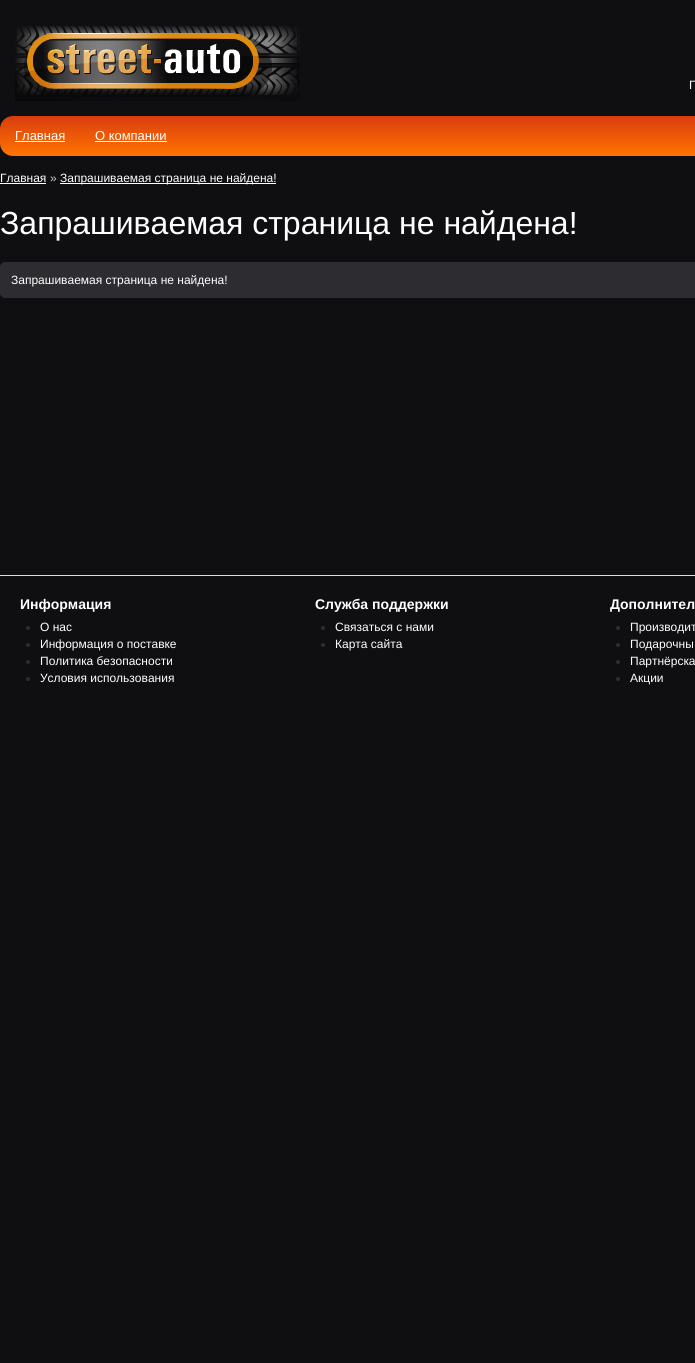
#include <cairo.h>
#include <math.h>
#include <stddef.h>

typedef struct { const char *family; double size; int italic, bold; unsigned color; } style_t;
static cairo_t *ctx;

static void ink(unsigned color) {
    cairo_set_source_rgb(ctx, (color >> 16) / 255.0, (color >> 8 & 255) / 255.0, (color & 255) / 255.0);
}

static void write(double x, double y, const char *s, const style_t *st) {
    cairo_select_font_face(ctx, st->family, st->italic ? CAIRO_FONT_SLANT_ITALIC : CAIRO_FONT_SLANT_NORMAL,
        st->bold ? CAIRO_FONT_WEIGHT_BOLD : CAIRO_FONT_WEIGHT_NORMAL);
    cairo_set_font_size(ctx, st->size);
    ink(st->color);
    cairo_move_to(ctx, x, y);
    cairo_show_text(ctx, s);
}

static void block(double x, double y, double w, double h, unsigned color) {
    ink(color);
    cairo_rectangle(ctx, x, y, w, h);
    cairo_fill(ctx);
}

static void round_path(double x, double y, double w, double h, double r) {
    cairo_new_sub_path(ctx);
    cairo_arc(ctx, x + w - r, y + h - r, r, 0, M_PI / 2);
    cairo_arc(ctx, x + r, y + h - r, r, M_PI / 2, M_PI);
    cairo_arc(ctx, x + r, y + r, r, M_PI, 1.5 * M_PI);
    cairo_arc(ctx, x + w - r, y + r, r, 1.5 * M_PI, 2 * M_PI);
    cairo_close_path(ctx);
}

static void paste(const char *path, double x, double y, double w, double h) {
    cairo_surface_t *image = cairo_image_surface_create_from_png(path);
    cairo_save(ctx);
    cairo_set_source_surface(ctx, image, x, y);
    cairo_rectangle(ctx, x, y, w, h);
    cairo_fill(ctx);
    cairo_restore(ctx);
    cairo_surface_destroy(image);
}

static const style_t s1 = {"Liberation Sans", 12, 0, 0, 0xffffff};
static const style_t s2 = {"Liberation Sans", 13, 0, 0, 0xffffff};
static const style_t s3 = {"Liberation Sans", 12, 0, 0, 0xcccccc};
static const style_t s4 = {"Liberation Sans", 32, 0, 0, 0xffffff};
static const style_t s5 = {"Liberation Sans", 14, 0, 1, 0xffffff};

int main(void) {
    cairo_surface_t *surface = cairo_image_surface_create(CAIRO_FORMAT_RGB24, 695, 1363);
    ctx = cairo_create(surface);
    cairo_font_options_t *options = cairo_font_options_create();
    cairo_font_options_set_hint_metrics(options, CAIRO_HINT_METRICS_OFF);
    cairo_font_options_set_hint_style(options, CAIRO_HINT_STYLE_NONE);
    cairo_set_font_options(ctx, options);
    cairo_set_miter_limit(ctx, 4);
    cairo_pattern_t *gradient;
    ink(0x0f0f11);
    cairo_paint(ctx);
    paste("pic1.png", 15, 26, 285, 75);
    write(689, 89, "Г", &s1);
    gradient = cairo_pattern_create_linear(513, 116, 513, 156);
    cairo_pattern_add_color_stop_rgba(gradient, 0, 0.851, 0.239, 0.055, 1);
    cairo_pattern_add_color_stop_rgba(gradient, 1, 1, 0.455, 0, 1);
    cairo_set_source(ctx, gradient);
    cairo_pattern_destroy(gradient);
    round_path(0, 116, 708, 40, 13);
    cairo_fill(ctx);
    write(15, 140, "Главная", &s2);
    block(15, 141, 50, 1, 0xffffff);
    write(95, 140, "О компании", &s2);
    block(95, 141, 72, 1, 0xffffff);
    write(0, 182, "Главная", &s1);
    block(0, 183, 46, 1, 0xffffff);
    write(50, 182, "»", &s3);
    block(60, 183, 216, 1, 0xffffff);
    write(60, 182, "Запрашиваемая страница не найдена!", &s1);
    write(0, 234, "Запрашиваемая страница не найдена!", &s4);
    ink(0x2d2d31);
    round_path(0.5, 262.5, 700, 35, 4.5);
    cairo_fill_preserve(ctx);
    cairo_set_line_width(ctx, 1);
    cairo_stroke(ctx);
    write(11, 284, "Запрашиваемая страница не найдена!", &s1);
    block(0, 575, 695, 1, 0xdbdee1);
    write(20, 609, "Информация", &s5);
    ink(0x2d2d31);
    cairo_new_path(ctx);
    cairo_arc(ctx, 28, 628, 2, 0, 2 * M_PI);
    cairo_fill(ctx);
    write(40, 631, "О нас", &s1);
    ink(0x2d2d31);
    cairo_new_path(ctx);
    cairo_arc(ctx, 28, 645, 2, 0, 2 * M_PI);
    cairo_fill(ctx);
    write(40, 648, "Информация о поставке", &s1);
    ink(0x2d2d31);
    cairo_new_path(ctx);
    cairo_arc(ctx, 28, 662, 2, 0, 2 * M_PI);
    cairo_fill(ctx);
    write(40, 665, "Политика безопасности", &s1);
    ink(0x2d2d31);
    cairo_new_path(ctx);
    cairo_arc(ctx, 28, 679, 2, 0, 2 * M_PI);
    cairo_fill(ctx);
    write(40, 682, "Условия использования", &s1);
    write(315, 609, "Служба поддержки", &s5);
    ink(0x2d2d31);
    cairo_new_path(ctx);
    cairo_arc(ctx, 323, 628, 2, 0, 2 * M_PI);
    cairo_fill(ctx);
    write(335, 631, "Связаться с нами", &s1);
    ink(0x2d2d31);
    cairo_new_path(ctx);
    cairo_arc(ctx, 323, 645, 2, 0, 2 * M_PI);
    cairo_fill(ctx);
    write(335, 648, "Карта сайта", &s1);
    write(610, 609, "Дополнител", &s5);
    ink(0x2d2d31);
    cairo_new_path(ctx);
    cairo_arc(ctx, 618, 628, 2, 0, 2 * M_PI);
    cairo_fill(ctx);
    write(630, 631, "Производит", &s1);
    ink(0x2d2d31);
    cairo_new_path(ctx);
    cairo_arc(ctx, 618, 645, 2, 0, 2 * M_PI);
    cairo_fill(ctx);
    write(630, 648, "Подарочны", &s1);
    ink(0x2d2d31);
    cairo_new_path(ctx);
    cairo_arc(ctx, 618, 662, 2, 0, 2 * M_PI);
    cairo_fill(ctx);
    write(630, 665, "Партнёрска", &s1);
    ink(0x2d2d31);
    cairo_new_path(ctx);
    cairo_arc(ctx, 618, 679, 2, 0, 2 * M_PI);
    cairo_fill(ctx);
    write(630, 682, "Акции", &s1);
    cairo_surface_write_to_png(surface, "screenshot.png");
    cairo_font_options_destroy(options);
    cairo_destroy(ctx);
    cairo_surface_destroy(surface);
    return 0;
}
